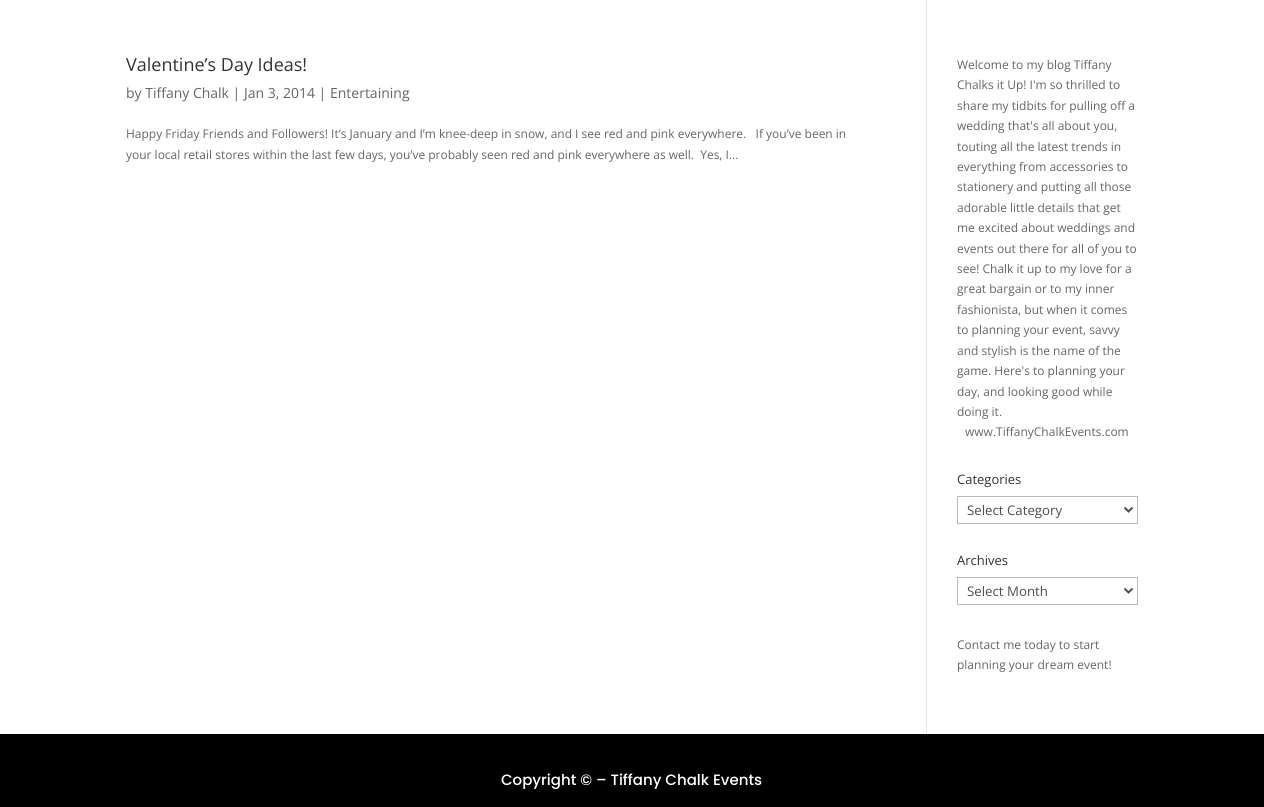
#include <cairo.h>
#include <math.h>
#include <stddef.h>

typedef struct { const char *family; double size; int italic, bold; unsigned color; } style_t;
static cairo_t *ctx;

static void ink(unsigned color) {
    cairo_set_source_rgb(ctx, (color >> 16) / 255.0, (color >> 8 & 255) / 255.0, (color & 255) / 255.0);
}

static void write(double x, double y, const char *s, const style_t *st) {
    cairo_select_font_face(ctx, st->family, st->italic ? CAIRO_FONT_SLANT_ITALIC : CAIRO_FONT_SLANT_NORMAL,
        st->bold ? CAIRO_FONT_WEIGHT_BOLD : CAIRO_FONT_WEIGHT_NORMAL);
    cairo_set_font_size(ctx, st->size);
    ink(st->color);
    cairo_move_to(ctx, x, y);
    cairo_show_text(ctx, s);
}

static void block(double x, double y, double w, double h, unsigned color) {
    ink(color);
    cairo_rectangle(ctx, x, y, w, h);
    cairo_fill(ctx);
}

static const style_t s1 = {"Open Sans", 18, 0, 0, 0x333333};
static const style_t s2 = {"Open Sans", 14, 0, 0, 0x666666};
static const style_t s3 = {"Open Sans", 12, 0, 0, 0x666666};
static const style_t s4 = {"Open Sans", 13, 0, 0, 0x333333};
static const style_t s5 = {"Open Sans", 13.25, 0, 0, 0x4e4e4e};
static const style_t s6 = {"Poppins Medium", 15, 0, 0, 0xffffff};

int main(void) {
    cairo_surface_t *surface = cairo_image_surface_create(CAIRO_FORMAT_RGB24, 1264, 807);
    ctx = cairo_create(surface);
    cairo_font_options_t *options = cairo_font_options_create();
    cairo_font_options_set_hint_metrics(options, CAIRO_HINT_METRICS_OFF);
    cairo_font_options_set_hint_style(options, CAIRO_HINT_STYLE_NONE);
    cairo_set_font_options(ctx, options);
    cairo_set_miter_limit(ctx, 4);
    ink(0xffffff);
    cairo_paint(ctx);
    block(926, 0, 1, 734, 0xe2e2e2);
    write(126, 71, "Valentine’s Day Ideas!", &s1);
    write(126, 98, "by Tiffany Chalk | Jan 3, 2014 | Entertaining", &s2);
    write(126, 138, "Happy Friday Friends and Followers! It’s January and I’m knee-deep in snow, and I see red and pink everywhere.   If you’ve been in", &s3);
    write(126, 159, "your local retail stores within the last few days, you’ve probably seen red and pink everywhere as well.  Yes, I...", &s3);
    write(957, 69, "Welcome to my blog Tiffany", &s3);
    write(957, 89, "Chalks it Up! I'm so thrilled to", &s3);
    write(957, 110, "share my tidbits for pulling off a", &s3);
    write(957, 130, "wedding that's all about you,", &s3);
    write(957, 151, "touting all the latest trends in", &s3);
    write(957, 171, "everything from accessories to", &s3);
    write(957, 191, "stationery and putting all those", &s3);
    write(957, 212, "adorable little details that get", &s3);
    write(957, 232, "me excited about weddings and", &s3);
    write(957, 253, "events out there for all of you to", &s3);
    write(957, 273, "see! Chalk it up to my love for a", &s3);
    write(957, 293, "great bargain or to my inner", &s3);
    write(957, 314, "fashionista, but when it comes", &s3);
    write(957, 334, "to planning your event, savvy", &s3);
    write(957, 355, "and stylish is the name of the", &s3);
    write(957, 375, "game. Here's to planning your", &s3);
    write(957, 396, "day, and looking good while", &s3);
    write(957, 416, "doing it.", &s3);
    write(965, 436, "www.TiffanyChalkEvents.com", &s3);
    write(957, 484, "Categories", &s4);
    cairo_rectangle(ctx, 957.5, 496.5, 180, 27);
    ink(0xbbbbbb);
    cairo_set_line_width(ctx, 1);
    cairo_stroke(ctx);
    cairo_new_path(ctx);
    cairo_move_to(ctx, 1124.5, 507.5);
    cairo_line_to(ctx, 1128.5, 511.5);
    cairo_line_to(ctx, 1132.5, 507.5);
    ink(0x4e4e4e);
    cairo_set_line_width(ctx, 2);
    cairo_stroke(ctx);
    write(967, 515, "Select Category", &s5);
    write(957, 565, "Archives", &s4);
    cairo_rectangle(ctx, 957.5, 577.5, 180, 27);
    ink(0xbbbbbb);
    cairo_set_line_width(ctx, 1);
    cairo_stroke(ctx);
    cairo_new_path(ctx);
    cairo_move_to(ctx, 1124.5, 588.5);
    cairo_line_to(ctx, 1128.5, 592.5);
    cairo_line_to(ctx, 1132.5, 588.5);
    ink(0x4e4e4e);
    cairo_set_line_width(ctx, 2);
    cairo_stroke(ctx);
    write(967, 596, "Select Month", &s5);
    write(957, 649, "Contact me today to start", &s3);
    write(957, 669, "planning your dream event!", &s3);
    block(0, 734, 1264, 73, 0x000000);
    write(501, 785, "Copyright © – Tiffany Chalk Events", &s6);
    cairo_surface_write_to_png(surface, "screenshot.png");
    cairo_font_options_destroy(options);
    cairo_destroy(ctx);
    cairo_surface_destroy(surface);
    return 0;
}
